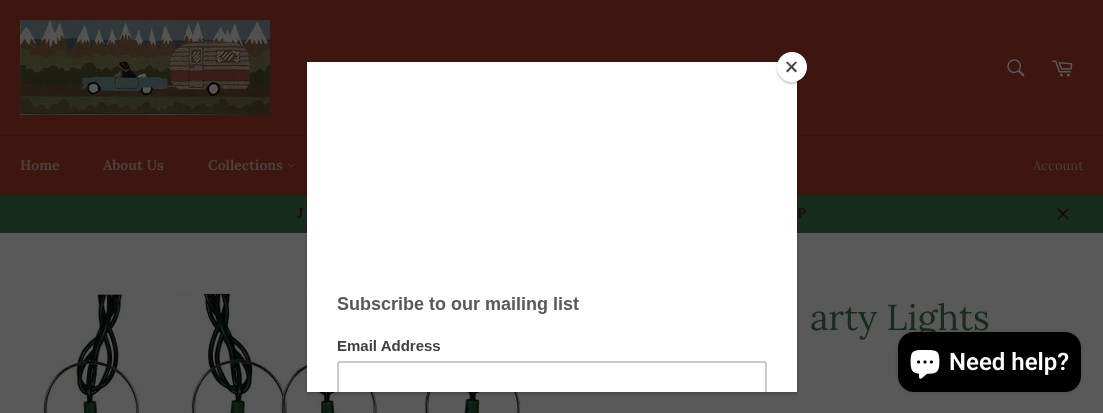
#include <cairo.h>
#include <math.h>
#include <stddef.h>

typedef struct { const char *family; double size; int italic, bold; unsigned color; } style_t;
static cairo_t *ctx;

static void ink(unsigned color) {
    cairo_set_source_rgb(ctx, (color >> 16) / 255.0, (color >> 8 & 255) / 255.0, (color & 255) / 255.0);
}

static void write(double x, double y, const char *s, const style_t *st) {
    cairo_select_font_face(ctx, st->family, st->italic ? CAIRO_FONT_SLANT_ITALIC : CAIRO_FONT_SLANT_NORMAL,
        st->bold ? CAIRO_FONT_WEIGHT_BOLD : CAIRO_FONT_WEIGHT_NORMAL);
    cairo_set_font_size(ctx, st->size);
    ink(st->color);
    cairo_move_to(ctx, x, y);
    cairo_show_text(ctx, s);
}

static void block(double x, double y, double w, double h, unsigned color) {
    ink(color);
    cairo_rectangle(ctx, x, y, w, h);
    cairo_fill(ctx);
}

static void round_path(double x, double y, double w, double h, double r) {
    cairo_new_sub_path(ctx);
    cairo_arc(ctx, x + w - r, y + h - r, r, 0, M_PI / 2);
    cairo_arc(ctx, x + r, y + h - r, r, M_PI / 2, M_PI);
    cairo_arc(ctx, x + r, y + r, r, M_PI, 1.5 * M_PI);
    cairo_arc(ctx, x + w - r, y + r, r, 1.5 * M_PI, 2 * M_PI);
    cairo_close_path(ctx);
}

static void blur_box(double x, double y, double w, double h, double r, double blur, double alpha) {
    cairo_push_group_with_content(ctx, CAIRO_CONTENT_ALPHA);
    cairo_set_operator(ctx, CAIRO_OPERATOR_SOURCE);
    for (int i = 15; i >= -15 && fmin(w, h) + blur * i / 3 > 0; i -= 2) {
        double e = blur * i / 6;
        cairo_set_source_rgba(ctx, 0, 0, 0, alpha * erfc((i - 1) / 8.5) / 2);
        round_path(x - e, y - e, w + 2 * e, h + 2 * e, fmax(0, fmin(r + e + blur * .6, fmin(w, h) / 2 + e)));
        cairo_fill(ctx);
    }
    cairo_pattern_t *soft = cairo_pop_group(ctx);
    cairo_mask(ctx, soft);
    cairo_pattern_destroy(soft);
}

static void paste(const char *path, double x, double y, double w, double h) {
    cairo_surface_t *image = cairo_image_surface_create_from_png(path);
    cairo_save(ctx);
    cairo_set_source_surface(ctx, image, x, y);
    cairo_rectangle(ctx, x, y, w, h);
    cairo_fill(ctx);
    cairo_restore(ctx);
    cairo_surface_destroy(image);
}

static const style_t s1 = {"Lora", 14, 0, 1, 0x4e3e3c};
static const style_t s2 = {"Lora", 13, 0, 0, 0x4e3e3c};
static const style_t s3 = {"Lora", 14, 0, 1, 0x190a07};
static const style_t s4 = {"Lora", 36, 0, 0, 0x182c1d};
static const style_t s5 = {"Roboto SemiBold", 24, 0, 0, 0xffffff};

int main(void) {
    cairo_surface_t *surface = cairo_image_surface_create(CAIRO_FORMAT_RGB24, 1103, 413);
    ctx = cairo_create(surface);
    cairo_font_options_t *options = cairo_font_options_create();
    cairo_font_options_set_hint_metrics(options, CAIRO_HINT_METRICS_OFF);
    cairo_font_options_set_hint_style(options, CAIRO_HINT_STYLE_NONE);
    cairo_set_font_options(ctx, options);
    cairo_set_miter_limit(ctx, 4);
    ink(0x595959);
    cairo_paint(ctx);
    block(0, 0, 1103, 135, 0x3c160f);
    block(0, 136, 1103, 59, 0x3c160f);
    block(0, 135, 1103, 1, 0x35140e);
    block(0, 195, 1103, 38, 0x182c1d);
    paste("pic7.png", 41, 293, 480, 120);
    ink(0x000000);
    blur_box(307, 64, 490, 330, 0, 2, 0.2);
    paste("pic1.png", 307, 62, 490, 330);
    blur_box(777, 54, 30, 30, 15, 1, 0.2);
    ink(0xffffff);
    cairo_arc(ctx, 792, 67, 15, 0, 2 * M_PI);
    cairo_fill(ctx);
    ink(0x414141);
    cairo_new_path(ctx);
    cairo_move_to(ctx, 795.5, 61.5);
    cairo_line_to(ctx, 797, 62.5);
    cairo_line_to(ctx, 787.5, 72.5);
    cairo_line_to(ctx, 786, 71);
    cairo_close_path(ctx);
    cairo_fill(ctx);
    cairo_new_path(ctx);
    cairo_move_to(ctx, 786, 62.5);
    cairo_line_to(ctx, 787.5, 61.5);
    cairo_line_to(ctx, 797, 71);
    cairo_line_to(ctx, 795.5, 72.5);
    cairo_close_path(ctx);
    cairo_fill(ctx);
    paste("pic2.png", 20, 20, 250, 95);
    paste("pic3.png", 1007, 59, 18, 18);
    paste("pic4.png", 1051, 60, 22, 17);
    write(20, 170, "Home", &s1);
    write(103, 170, "About Us", &s1);
    write(208, 170, "Collections", &s1);
    paste("pic5.png", 288, 163, 7, 5);
    write(1033, 170, "Account", &s2);
    write(297, 218, "J", &s3);
    write(797, 218, "P", &s3);
    paste("pic6.png", 1057, 208, 12, 12);
    write(810, 330, "arty Lights", &s4);
    ink(0x000000);
    blur_box(898, 332, 183, 60, 16, 2.5, 0.15);
    ink(0x000000);
    round_path(898, 332, 183, 60, 16);
    cairo_fill(ctx);
    paste("pic8.png", 910, 350, 30, 29);
    write(949, 370, "Need help?", &s5);
    cairo_surface_write_to_png(surface, "screenshot.png");
    cairo_font_options_destroy(options);
    cairo_destroy(ctx);
    cairo_surface_destroy(surface);
    return 0;
}
